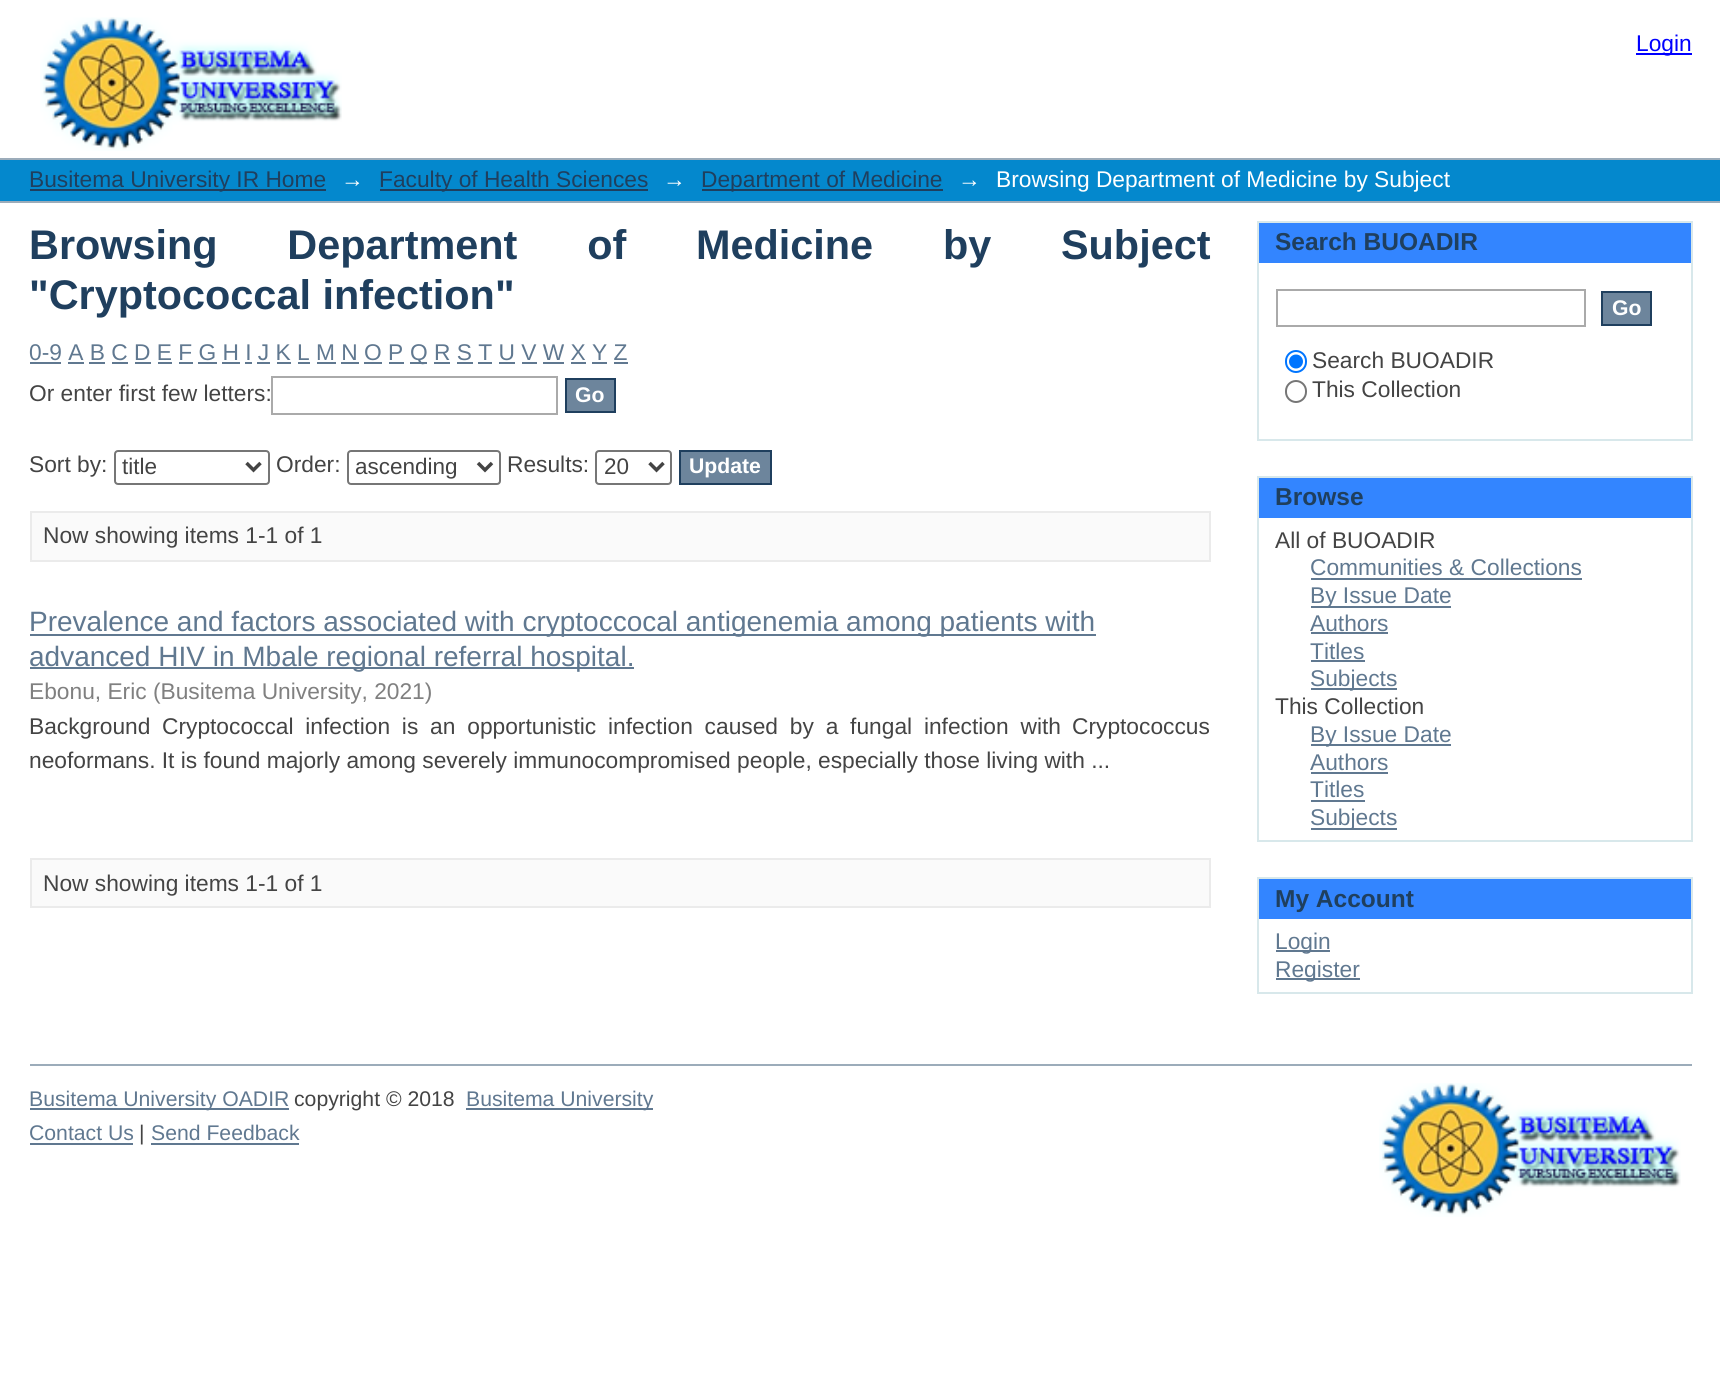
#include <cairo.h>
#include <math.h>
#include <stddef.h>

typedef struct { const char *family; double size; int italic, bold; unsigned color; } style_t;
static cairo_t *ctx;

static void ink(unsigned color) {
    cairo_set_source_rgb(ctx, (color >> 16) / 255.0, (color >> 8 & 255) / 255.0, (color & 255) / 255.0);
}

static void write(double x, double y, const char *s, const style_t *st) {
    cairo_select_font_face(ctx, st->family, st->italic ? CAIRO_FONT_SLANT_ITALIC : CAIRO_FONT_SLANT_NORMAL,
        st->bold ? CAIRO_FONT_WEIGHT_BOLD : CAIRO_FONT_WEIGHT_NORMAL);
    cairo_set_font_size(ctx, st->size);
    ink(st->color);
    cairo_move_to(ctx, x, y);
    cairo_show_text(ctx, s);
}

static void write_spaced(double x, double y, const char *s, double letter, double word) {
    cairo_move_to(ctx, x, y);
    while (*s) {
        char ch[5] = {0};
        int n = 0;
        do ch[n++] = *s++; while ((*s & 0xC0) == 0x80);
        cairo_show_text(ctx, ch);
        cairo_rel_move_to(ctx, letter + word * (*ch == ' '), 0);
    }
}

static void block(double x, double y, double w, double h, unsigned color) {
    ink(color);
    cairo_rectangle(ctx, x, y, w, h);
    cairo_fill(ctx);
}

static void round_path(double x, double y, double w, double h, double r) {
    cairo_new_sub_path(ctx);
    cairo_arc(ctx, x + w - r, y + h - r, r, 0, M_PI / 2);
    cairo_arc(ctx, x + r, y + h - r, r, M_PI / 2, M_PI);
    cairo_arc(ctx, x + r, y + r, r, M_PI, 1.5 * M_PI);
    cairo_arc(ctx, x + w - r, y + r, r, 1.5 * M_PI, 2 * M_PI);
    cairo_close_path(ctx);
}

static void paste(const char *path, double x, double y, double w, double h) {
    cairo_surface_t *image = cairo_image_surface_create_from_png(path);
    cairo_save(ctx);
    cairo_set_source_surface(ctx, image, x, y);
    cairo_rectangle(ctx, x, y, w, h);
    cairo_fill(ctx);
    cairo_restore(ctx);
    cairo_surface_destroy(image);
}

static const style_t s1 = {"Liberation Sans", 22.75, 0, 0, 0x0000ff};
static const style_t s2 = {"Liberation Sans", 22.75, 0, 0, 0x1f3f5e};
static const style_t s3 = {"Liberation Sans", 22.75, 0, 0, 0xffffff};
static const style_t s4 = {"Liberation Sans", 41.4, 0, 1, 0x1f3f5e};
static const style_t s5 = {"Liberation Sans", 22.75, 0, 0, 0x607890};
static const style_t s6 = {"Liberation Sans", 22.75, 0, 0, 0x444444};
static const style_t s7 = {"Liberation Sans", 21.2, 0, 1, 0xffffff};
static const style_t s8 = {"Liberation Sans", 22.5, 0, 0, 0x444444};
static const style_t s9 = {"Liberation Sans", 28, 0, 0, 0x607890};
static const style_t s10 = {"Liberation Sans", 22.75, 0, 0, 0x808080};
static const style_t s11 = {"Liberation Sans", 24.5, 0, 1, 0x1f3f5e};
static const style_t s12 = {"Liberation Sans", 21.2, 0, 0, 0x607890};
static const style_t s13 = {"Liberation Sans", 21.2, 0, 0, 0x444444};

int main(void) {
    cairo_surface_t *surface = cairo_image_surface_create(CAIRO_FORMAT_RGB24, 1720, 1388);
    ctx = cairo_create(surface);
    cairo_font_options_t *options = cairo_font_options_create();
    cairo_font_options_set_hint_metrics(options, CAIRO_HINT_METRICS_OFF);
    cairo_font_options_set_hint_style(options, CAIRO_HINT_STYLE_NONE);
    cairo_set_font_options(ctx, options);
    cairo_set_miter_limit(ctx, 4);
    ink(0xffffff);
    cairo_paint(ctx);
    paste("pic1.png", 40, 17, 302, 134);
    block(1636, 53, 56, 2, 0x0000ff);
    write(1636, 51, "Login", &s1);
    block(0, 160, 1720, 41, 0x0488cd);
    block(0, 158, 1720, 2, 0x9cacba);
    block(0, 201, 1720, 2, 0x9cacba);
    block(30, 189, 296, 2, 0x1f3f5e);
    write(29, 187, "Busitema University IR Home", &s2);
    write(341, 187, "→", &s3);
    block(380, 189, 268, 2, 0x1f3f5e);
    write(379, 187, "Faculty of Health Sciences", &s2);
    write(663, 187, "→", &s3);
    block(702, 189, 241, 2, 0x1f3f5e);
    write(701, 187, "Department of Medicine", &s2);
    write(958, 187, "→", &s3);
    write(996, 187, "Browsing Department of Medicine by Subject", &s3);
    cairo_select_font_face(ctx, "Liberation Sans", CAIRO_FONT_SLANT_NORMAL, CAIRO_FONT_WEIGHT_BOLD);
    cairo_set_font_size(ctx, 41.4);
    ink(0x1f3f5e);
    write_spaced(29, 259, "Browsing Department of Medicine by Subject", 0, 58.25);
    write(29, 309, "\"Cryptococcal infection\"", &s4);
    write(29, 360, "0-9 A B C D E F G H I J K L M N O P", &s5);
    block(30, 362, 31, 2, 0x607890);
    block(410, 362, 17, 2, 0x607890);
    write(410, 360, "Q R S T U V W X Y Z", &s5);
    block(68, 362, 16, 2, 0x607890);
    block(89, 362, 16, 2, 0x607890);
    block(112, 362, 16, 2, 0x607890);
    block(135, 362, 16, 2, 0x607890);
    block(158, 362, 14, 2, 0x607890);
    block(179, 362, 14, 2, 0x607890);
    block(198, 362, 19, 2, 0x607890);
    block(222, 362, 18, 2, 0x607890);
    block(245, 362, 7, 2, 0x607890);
    block(257, 362, 13, 2, 0x607890);
    block(277, 362, 14, 2, 0x607890);
    block(298, 362, 12, 2, 0x607890);
    block(317, 362, 19, 2, 0x607890);
    block(341, 362, 18, 2, 0x607890);
    block(364, 362, 18, 2, 0x607890);
    block(389, 362, 15, 2, 0x607890);
    block(434, 362, 16, 2, 0x607890);
    block(457, 362, 16, 2, 0x607890);
    block(478, 362, 14, 2, 0x607890);
    block(499, 362, 16, 2, 0x607890);
    block(522, 362, 15, 2, 0x607890);
    block(543, 362, 21, 2, 0x607890);
    block(571, 362, 15, 2, 0x607890);
    block(592, 362, 15, 2, 0x607890);
    block(614, 362, 14, 2, 0x607890);
    write(29, 401, "Or enter first few letters:", &s6);
    cairo_rectangle(ctx, 272, 377, 285, 37);
    ink(0xaaaaaa);
    cairo_stroke(ctx);
    ink(0x6d859c);
    cairo_rectangle(ctx, 566, 379, 49, 33);
    cairo_fill_preserve(ctx);
    ink(0x1f3f5e);
    cairo_stroke(ctx);
    write(575, 402, "Go", &s7);
    write(29, 472, "Sort by:", &s6);
    round_path(115, 451, 154, 33, 3);
    ink(0x767676);
    cairo_stroke(ctx);
    cairo_new_path(ctx);
    cairo_move_to(ctx, 246.5, 463);
    cairo_line_to(ctx, 253.5, 470);
    cairo_line_to(ctx, 260.5, 463);
    ink(0x444444);
    cairo_set_line_width(ctx, 3.5);
    cairo_stroke(ctx);
    write(122, 474, "title", &s8);
    write(276, 472, "Order:", &s6);
    round_path(348, 451, 152, 33, 3);
    ink(0x767676);
    cairo_set_line_width(ctx, 2);
    cairo_stroke(ctx);
    cairo_new_path(ctx);
    cairo_move_to(ctx, 478, 463);
    cairo_line_to(ctx, 485, 470);
    cairo_line_to(ctx, 492, 463);
    ink(0x444444);
    cairo_set_line_width(ctx, 3.5);
    cairo_stroke(ctx);
    write(355, 474, "ascending", &s8);
    write(507, 472, "Results:", &s6);
    round_path(596, 451, 75, 33, 3);
    ink(0x767676);
    cairo_set_line_width(ctx, 2);
    cairo_stroke(ctx);
    cairo_new_path(ctx);
    cairo_move_to(ctx, 649.5, 463);
    cairo_line_to(ctx, 656.5, 470);
    cairo_line_to(ctx, 663.5, 463);
    ink(0x444444);
    cairo_set_line_width(ctx, 3.5);
    cairo_stroke(ctx);
    write(604, 474, "20", &s8);
    ink(0x6d859c);
    cairo_rectangle(ctx, 680, 451, 91, 33);
    cairo_fill_preserve(ctx);
    ink(0x1f3f5e);
    cairo_set_line_width(ctx, 2);
    cairo_stroke(ctx);
    write(689, 473, "Update", &s7);
    ink(0xfafafa);
    cairo_rectangle(ctx, 31, 512, 1179, 49);
    cairo_fill_preserve(ctx);
    ink(0xebebeb);
    cairo_stroke(ctx);
    write(43, 543, "Now showing items 1-1 of 1", &s6);
    block(30, 634, 1066, 2, 0x607890);
    write(29, 631, "Prevalence and factors associated with cryptoccocal antigenemia among patients with", &s9);
    block(30, 667, 604, 2, 0x607890);
    write(29, 666, "advanced HIV in Mbale regional referral hospital.", &s9);
    write(29, 699, "Ebonu, Eric (Busitema University, 2021)", &s10);
    write(29, 734, "Background", &s6);
    write_spaced(162, 734, "Cryptococcal infection is an opportunistic infection caused by a fungal infection with", 0, 5.5);
    write(1072, 734, "Cryptococcus", &s6);
    write(29, 768, "neoformans. It is found majorly among severely immunocompromised people, especially those living with ...", &s6);
    ink(0xfafafa);
    cairo_rectangle(ctx, 31, 859, 1179, 48);
    cairo_fill_preserve(ctx);
    ink(0xebebeb);
    cairo_stroke(ctx);
    write(43, 891, "Now showing items 1-1 of 1", &s6);
    block(1259, 223, 432, 40, 0x3385ff);
    block(1257, 221, 435, 2, 0xd8e8eb);
    block(1691, 221, 2, 220, 0xd8e8eb);
    block(1257, 221, 2, 42, 0xd8e8eb);
    write(1275, 250, "Search BUOADIR", &s11);
    block(1257, 439, 435, 2, 0xd8e8eb);
    block(1257, 263, 2, 178, 0xd8e8eb);
    cairo_rectangle(ctx, 1277, 290, 308, 36);
    ink(0xaaaaaa);
    cairo_stroke(ctx);
    ink(0x6d859c);
    cairo_rectangle(ctx, 1602, 292, 49, 33);
    cairo_fill_preserve(ctx);
    ink(0x1f3f5e);
    cairo_stroke(ctx);
    write(1612, 315, "Go", &s7);
    round_path(1286, 351, 20, 21, 10);
    ink(0x0075ff);
    cairo_stroke(ctx);
    cairo_arc(ctx, 1296, 361.5, 7, 0, 2 * M_PI);
    cairo_fill(ctx);
    write(1312, 368, "Search BUOADIR", &s6);
    round_path(1286, 381, 20, 21, 10);
    ink(0x767676);
    cairo_stroke(ctx);
    write(1312, 397, "This Collection", &s6);
    block(1259, 478, 432, 40, 0x3385ff);
    block(1257, 476, 435, 2, 0xd8e8eb);
    block(1691, 476, 2, 366, 0xd8e8eb);
    block(1257, 476, 2, 42, 0xd8e8eb);
    write(1275, 505, "Browse", &s11);
    block(1257, 840, 435, 2, 0xd8e8eb);
    block(1257, 518, 2, 324, 0xd8e8eb);
    write(1275, 548, "All of BUOADIR", &s6);
    write(1310, 575, "Communities & Collections", &s5);
    block(1311, 578, 271, 2, 0x607890);
    block(1311, 606, 140, 2, 0x607890);
    write(1310, 603, "By Issue Date", &s5);
    write(1310, 631, "Authors", &s5);
    block(1311, 632, 77, 2, 0x607890);
    write(1310, 659, "Titles", &s5);
    block(1311, 660, 54, 2, 0x607890);
    block(1311, 688, 86, 2, 0x607890);
    write(1310, 686, "Subjects", &s5);
    write(1275, 714, "This Collection", &s6);
    block(1311, 744, 140, 2, 0x607890);
    write(1310, 742, "By Issue Date", &s5);
    write(1310, 770, "Authors", &s5);
    block(1311, 772, 77, 2, 0x607890);
    write(1310, 797, "Titles", &s5);
    block(1311, 800, 54, 2, 0x607890);
    block(1311, 828, 86, 2, 0x607890);
    write(1310, 825, "Subjects", &s5);
    block(1259, 879, 432, 40, 0x3385ff);
    block(1257, 877, 435, 2, 0xd8e8eb);
    block(1691, 877, 2, 117, 0xd8e8eb);
    block(1257, 877, 2, 42, 0xd8e8eb);
    write(1275, 907, "My Account", &s11);
    block(1257, 992, 435, 2, 0xd8e8eb);
    block(1257, 919, 2, 75, 0xd8e8eb);
    block(1276, 950, 54, 2, 0x607890);
    write(1275, 949, "Login", &s5);
    block(1276, 978, 84, 2, 0x607890);
    write(1275, 977, "Register", &s5);
    block(30, 1064, 1662, 2, 0x9cacba);
    block(30, 1108, 259, 2, 0x607890);
    write(29, 1106, "Busitema University OADIR", &s12);
    write(294, 1106, "copyright © 2018", &s13);
    block(466, 1108, 187, 2, 0x607890);
    write(466, 1106, "Busitema University", &s12);
    paste("pic2.png", 1379, 1083, 302, 134);
    write(29, 1140, "Contact Us", &s12);
    block(30, 1143, 103, 2, 0x607890);
    write(139, 1140, "|", &s13);
    write(151, 1140, "Send Feedback", &s12);
    block(151, 1143, 148, 2, 0x607890);
    cairo_surface_write_to_png(surface, "screenshot.png");
    cairo_font_options_destroy(options);
    cairo_destroy(ctx);
    cairo_surface_destroy(surface);
    return 0;
}
